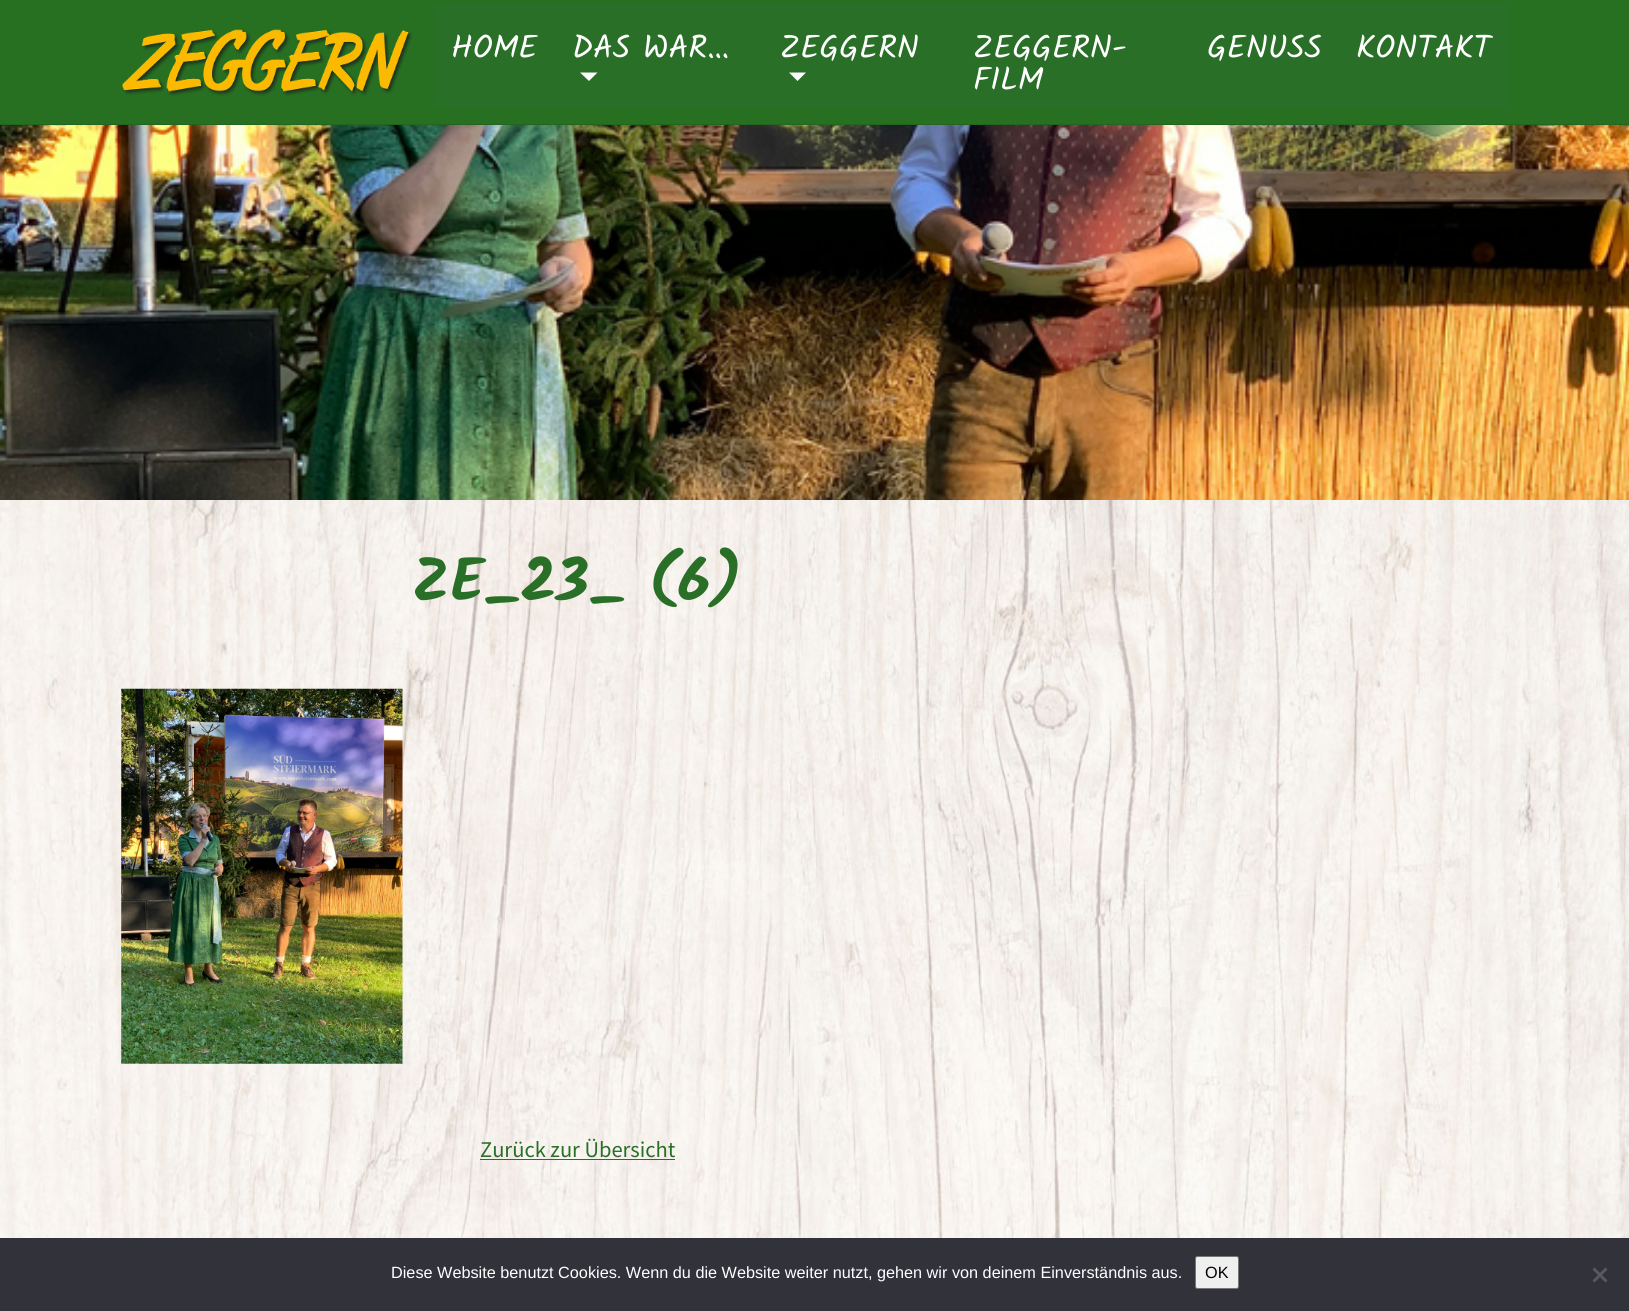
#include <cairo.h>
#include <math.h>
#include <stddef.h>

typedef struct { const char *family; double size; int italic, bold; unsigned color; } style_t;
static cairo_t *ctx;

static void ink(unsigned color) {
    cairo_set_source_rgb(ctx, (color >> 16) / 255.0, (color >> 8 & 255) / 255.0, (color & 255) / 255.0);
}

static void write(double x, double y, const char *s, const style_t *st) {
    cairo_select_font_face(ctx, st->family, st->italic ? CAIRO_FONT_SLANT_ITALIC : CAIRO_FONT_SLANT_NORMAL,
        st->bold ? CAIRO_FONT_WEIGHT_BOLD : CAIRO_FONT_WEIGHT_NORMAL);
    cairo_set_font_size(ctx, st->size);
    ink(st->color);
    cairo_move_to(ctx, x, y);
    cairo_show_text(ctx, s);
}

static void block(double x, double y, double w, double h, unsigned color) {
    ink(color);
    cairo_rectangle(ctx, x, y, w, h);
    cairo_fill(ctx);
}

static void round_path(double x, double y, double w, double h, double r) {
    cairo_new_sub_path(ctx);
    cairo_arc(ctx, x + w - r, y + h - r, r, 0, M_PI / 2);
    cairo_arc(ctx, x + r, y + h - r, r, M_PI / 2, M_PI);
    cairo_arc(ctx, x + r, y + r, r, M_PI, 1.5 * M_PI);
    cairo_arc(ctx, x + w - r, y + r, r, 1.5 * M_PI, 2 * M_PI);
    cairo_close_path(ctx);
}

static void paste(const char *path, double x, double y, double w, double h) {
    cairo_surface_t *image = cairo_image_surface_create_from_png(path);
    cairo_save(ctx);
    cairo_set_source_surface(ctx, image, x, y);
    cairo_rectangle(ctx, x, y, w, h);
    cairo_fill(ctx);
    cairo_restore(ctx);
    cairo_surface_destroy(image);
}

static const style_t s1 = {"Kalam", 32.5, 0, 0, 0xffffff};
static const style_t s2 = {"Kalam", 60, 0, 1, 0x296f27};
static const style_t s3 = {"Source Sans Pro", 22.5, 0, 0, 0x296f27};
static const style_t s4 = {"Liberation Sans", 16.25, 0, 0, 0xffffff};
static const style_t s5 = {"Liberation Sans", 16.25, 0, 0, 0x000000};

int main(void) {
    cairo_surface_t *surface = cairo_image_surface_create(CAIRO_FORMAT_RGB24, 1629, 1311);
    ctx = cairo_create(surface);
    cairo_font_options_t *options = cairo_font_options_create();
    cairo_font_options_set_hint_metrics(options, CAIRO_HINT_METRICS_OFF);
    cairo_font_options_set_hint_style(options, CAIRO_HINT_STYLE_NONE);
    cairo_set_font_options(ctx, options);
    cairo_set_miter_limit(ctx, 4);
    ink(0xffffff);
    cairo_paint(ctx);
    paste("pic1.png", 0, 500, 1629, 738);
    block(0, 0, 1629, 124, 0x277022);
    block(0, 124, 1629, 1, 0x23651f);
    paste("pic2.png", 122, 29, 291, 67);
    block(434, 3, 1075, 105, 0x296f27);
    write(451, 58, "HOME", &s1);
    write(572, 58, "DAS WAR…", &s1);
    cairo_new_path(ctx);
    cairo_move_to(ctx, 580, 72.5);
    cairo_line_to(ctx, 597.5, 72.5);
    cairo_line_to(ctx, 589, 81);
    cairo_close_path(ctx);
    cairo_fill(ctx);
    write(780, 58, "ZEGGERN", &s1);
    cairo_new_path(ctx);
    cairo_move_to(ctx, 789, 72.5);
    cairo_line_to(ctx, 806, 72.5);
    cairo_line_to(ctx, 797.5, 81);
    cairo_close_path(ctx);
    cairo_fill(ctx);
    write(973, 58, "ZEGGERN-", &s1);
    write(973, 90, "FILM", &s1);
    write(1207, 58, "GENUSS", &s1);
    write(1356, 58, "KONTAKT", &s1);
    paste("pic3.png", 0, 125, 1629, 375);
    write(412, 601, "ZE_23_ (6)", &s2);
    paste("pic4.png", 121, 688, 282, 376);
    write(480, 1157, "Zurück zur Übersicht", &s3);
    block(480, 1159, 195, 1, 0x277022);
    block(0, 1238, 1629, 73, 0x32323a);
    write(391, 1278, "Diese Website benutzt Cookies. Wenn du die Website weiter nutzt, gehen wir von deinem Einverständnis aus.", &s4);
    ink(0xefefef);
    round_path(1195.5, 1256.5, 43, 32, 2);
    cairo_fill_preserve(ctx);
    ink(0x767676);
    cairo_set_line_width(ctx, 1);
    cairo_stroke(ctx);
    write(1205, 1278, "OK", &s5);
    ink(0x59595d);
    cairo_new_path(ctx);
    cairo_move_to(ctx, 1605.5, 1267.5);
    cairo_line_to(ctx, 1607.5, 1269.5);
    cairo_line_to(ctx, 1594.5, 1282.5);
    cairo_line_to(ctx, 1592.5, 1280.5);
    cairo_close_path(ctx);
    cairo_fill(ctx);
    cairo_new_path(ctx);
    cairo_move_to(ctx, 1592.5, 1269.5);
    cairo_line_to(ctx, 1594.5, 1267.5);
    cairo_line_to(ctx, 1607.5, 1280.5);
    cairo_line_to(ctx, 1605.5, 1282.5);
    cairo_close_path(ctx);
    cairo_fill(ctx);
    cairo_surface_write_to_png(surface, "screenshot.png");
    cairo_font_options_destroy(options);
    cairo_destroy(ctx);
    cairo_surface_destroy(surface);
    return 0;
}
